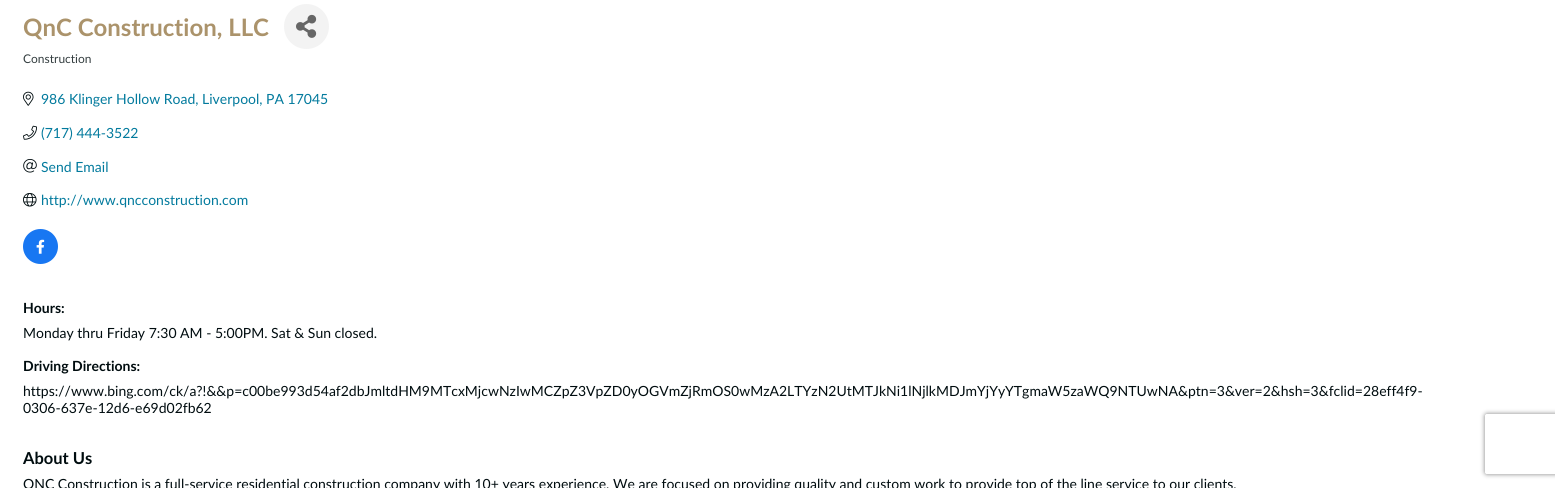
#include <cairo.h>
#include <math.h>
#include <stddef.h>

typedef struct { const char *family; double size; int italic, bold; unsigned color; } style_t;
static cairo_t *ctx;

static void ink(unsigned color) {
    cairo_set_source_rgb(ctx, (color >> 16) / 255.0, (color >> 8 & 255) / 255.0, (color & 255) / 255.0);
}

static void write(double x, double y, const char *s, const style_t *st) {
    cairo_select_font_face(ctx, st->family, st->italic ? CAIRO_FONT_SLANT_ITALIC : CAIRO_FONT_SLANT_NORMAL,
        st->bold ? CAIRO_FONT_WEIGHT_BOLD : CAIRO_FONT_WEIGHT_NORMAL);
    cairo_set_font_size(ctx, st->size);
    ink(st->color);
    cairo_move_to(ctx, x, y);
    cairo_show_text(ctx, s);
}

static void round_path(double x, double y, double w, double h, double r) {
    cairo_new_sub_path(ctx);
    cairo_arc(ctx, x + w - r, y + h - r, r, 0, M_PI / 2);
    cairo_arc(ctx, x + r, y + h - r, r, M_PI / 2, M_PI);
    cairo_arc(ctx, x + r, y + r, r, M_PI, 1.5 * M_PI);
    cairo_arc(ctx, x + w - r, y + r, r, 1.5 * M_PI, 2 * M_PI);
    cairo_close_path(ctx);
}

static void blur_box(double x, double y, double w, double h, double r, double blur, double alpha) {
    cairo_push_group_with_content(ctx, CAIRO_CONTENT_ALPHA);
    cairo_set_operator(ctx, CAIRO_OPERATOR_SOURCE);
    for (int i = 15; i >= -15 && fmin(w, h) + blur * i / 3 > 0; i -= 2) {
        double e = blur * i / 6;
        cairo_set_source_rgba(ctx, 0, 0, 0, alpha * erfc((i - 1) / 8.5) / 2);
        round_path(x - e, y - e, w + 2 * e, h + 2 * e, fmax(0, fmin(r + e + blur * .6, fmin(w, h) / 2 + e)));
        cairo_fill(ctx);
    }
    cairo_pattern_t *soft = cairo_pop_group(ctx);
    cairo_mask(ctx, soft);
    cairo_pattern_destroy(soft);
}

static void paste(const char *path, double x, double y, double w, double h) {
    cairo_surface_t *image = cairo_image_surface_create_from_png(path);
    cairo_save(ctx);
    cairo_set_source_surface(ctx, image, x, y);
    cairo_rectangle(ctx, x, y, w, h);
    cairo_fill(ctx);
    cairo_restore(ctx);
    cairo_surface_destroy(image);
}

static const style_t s1 = {"Lato", 24, 0, 1, 0xab936b};
static const style_t s2 = {"Lato", 12, 0, 0, 0x333d3f};
static const style_t s3 = {"Lato", 14, 0, 0, 0x027a9d};
static const style_t s4 = {"Lato", 14, 0, 1, 0x000c0f};
static const style_t s5 = {"Lato", 14, 0, 0, 0x000c0f};
static const style_t s6 = {"Lato", 16.5, 0, 1, 0x000c0f};

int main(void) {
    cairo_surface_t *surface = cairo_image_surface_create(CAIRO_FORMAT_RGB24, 1555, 488);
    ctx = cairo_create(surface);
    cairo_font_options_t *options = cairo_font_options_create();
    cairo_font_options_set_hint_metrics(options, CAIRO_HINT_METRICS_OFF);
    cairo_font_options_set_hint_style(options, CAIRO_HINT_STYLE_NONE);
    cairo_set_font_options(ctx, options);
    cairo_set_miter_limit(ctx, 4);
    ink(0xffffff);
    cairo_paint(ctx);
    write(23, 36, "QnC Construction, LLC", &s1);
    ink(0xf3f3f3);
    cairo_new_path(ctx);
    cairo_arc(ctx, 306.5, 26.5, 22.5, 0, 2 * M_PI);
    cairo_fill(ctx);
    paste("pic1.png", 296, 14, 21, 24);
    write(23, 63, "Construction", &s2);
    paste("pic2.png", 23, 91, 11, 15);
    write(41, 104, "986 Klinger Hollow Road, Liverpool, PA 17045", &s3);
    paste("pic3.png", 23, 125, 14, 15);
    write(41, 138, "(717) 444-3522", &s3);
    paste("pic4.png", 23, 159, 14, 14);
    write(41, 172, "Send Email", &s3);
    paste("pic5.png", 23, 193, 14, 14);
    write(41, 205, "http://www.qncconstruction.com", &s3);
    ink(0x1877f2);
    cairo_new_path(ctx);
    cairo_arc(ctx, 40.5, 246.5, 17.5, 0, 2 * M_PI);
    cairo_fill(ctx);
    paste("pic6.png", 36, 239, 9, 15);
    write(23, 313, "Hours:", &s4);
    write(23, 338, "Monday thru Friday 7:30 AM - 5:00PM. Sat & Sun closed.", &s5);
    write(23, 371, "Driving Directions:", &s4);
    write(23, 396, "https://www.bing.com/ck/a?!&&p=c00be993d54af2dbJmltdHM9MTcxMjcwNzIwMCZpZ3VpZD0yOGVmZjRmOS0wMzA2LTYzN2UtMTJkNi1lNjlkMDJmYjYyYTgmaW5zaWQ9NTUwNA&ptn=3&ver=2&hsh=3&fclid=28eff4f9-", &s5);
    write(23, 413, "0306-637e-12d6-e69d02fb62", &s5);
    write(23, 464, "About Us", &s6);
    write(23, 489, "QNC Construction is a full-service residential construction company with 10+ years experience. We are focused on providing quality and custom work to provide top of the line service to our clients.", &s5);
    cairo_save(ctx);
    cairo_set_fill_rule(ctx, CAIRO_FILL_RULE_EVEN_ODD);
    cairo_new_path(ctx);
    cairo_move_to(ctx, 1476, 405);
    cairo_line_to(ctx, 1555, 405);
    cairo_line_to(ctx, 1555, 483);
    cairo_line_to(ctx, 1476, 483);
    cairo_close_path(ctx);
    cairo_move_to(ctx, 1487, 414);
    cairo_line_to(ctx, 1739, 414);
    cairo_curve_to(ctx, 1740, 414, 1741, 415, 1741, 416);
    cairo_line_to(ctx, 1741, 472);
    cairo_curve_to(ctx, 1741, 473, 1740, 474, 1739, 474);
    cairo_line_to(ctx, 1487, 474);
    cairo_curve_to(ctx, 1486, 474, 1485, 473, 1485, 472);
    cairo_line_to(ctx, 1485, 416);
    cairo_curve_to(ctx, 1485, 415, 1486, 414, 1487, 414);
    cairo_close_path(ctx);
    cairo_clip(ctx);
    ink(0x808080);
    blur_box(1485, 414, 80, 60, 2, 2.5, 1);
    cairo_restore(ctx);
    cairo_surface_write_to_png(surface, "screenshot.png");
    cairo_font_options_destroy(options);
    cairo_destroy(ctx);
    cairo_surface_destroy(surface);
    return 0;
}
